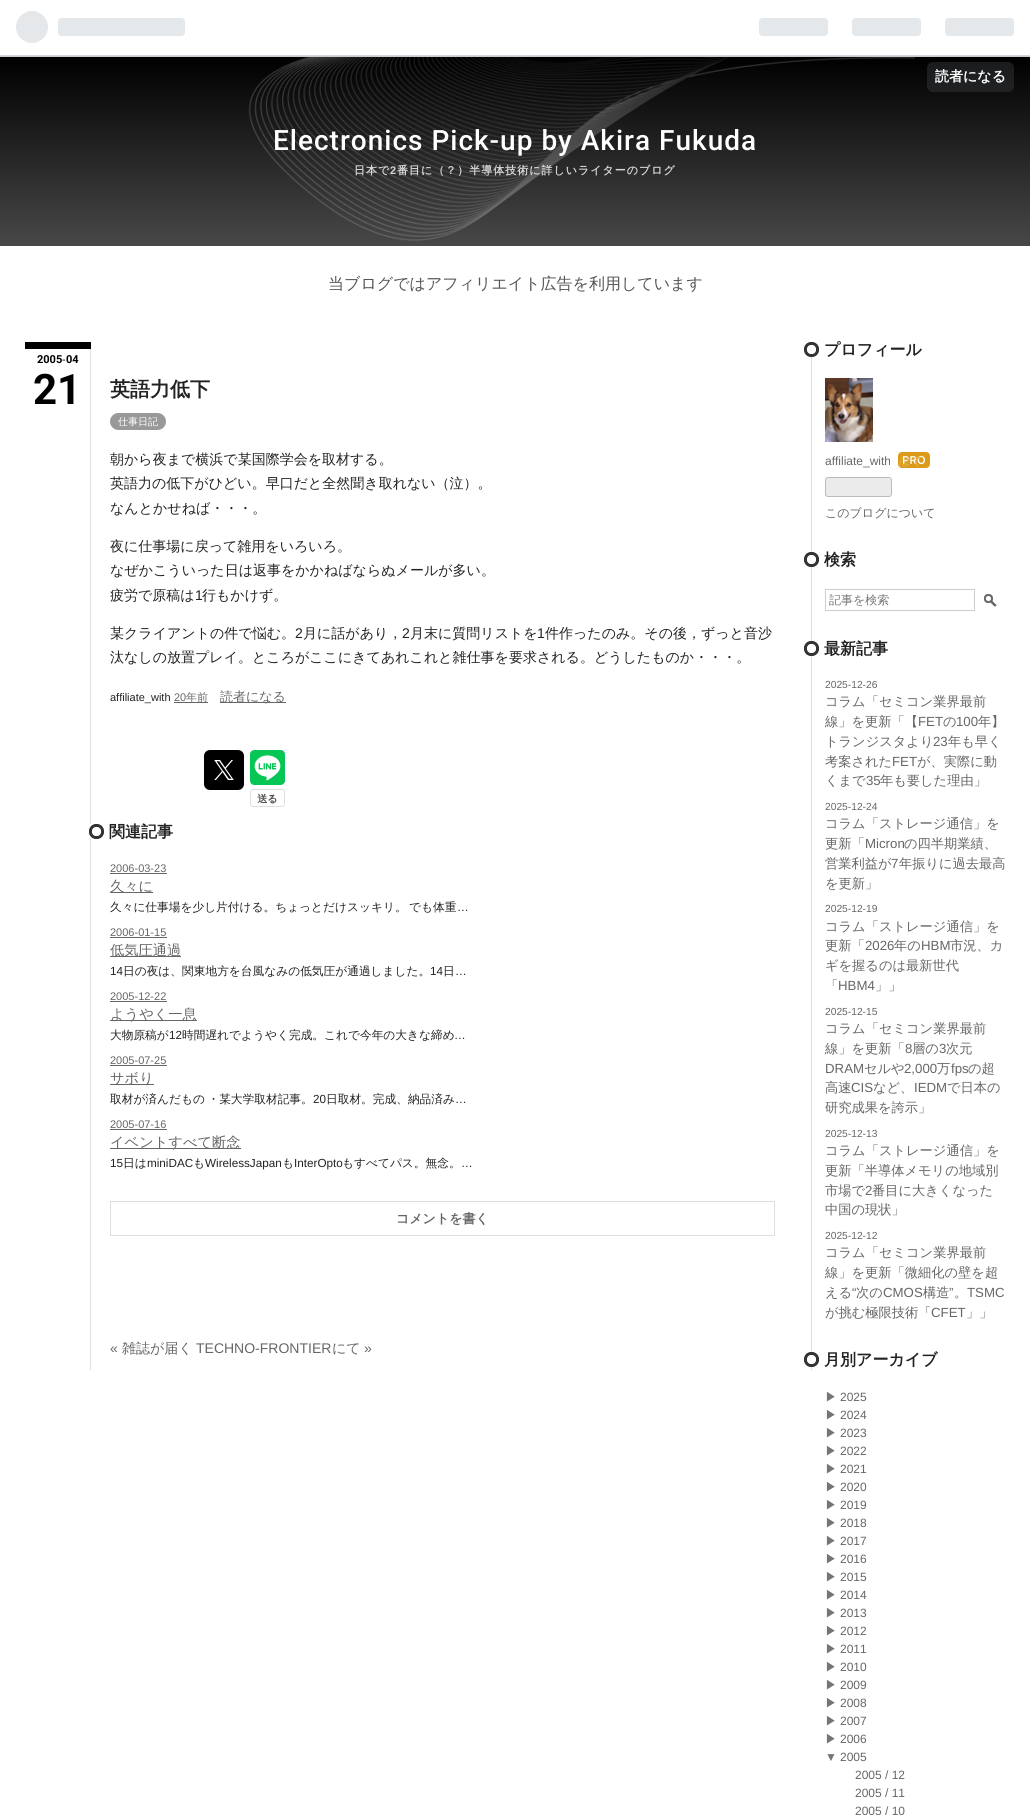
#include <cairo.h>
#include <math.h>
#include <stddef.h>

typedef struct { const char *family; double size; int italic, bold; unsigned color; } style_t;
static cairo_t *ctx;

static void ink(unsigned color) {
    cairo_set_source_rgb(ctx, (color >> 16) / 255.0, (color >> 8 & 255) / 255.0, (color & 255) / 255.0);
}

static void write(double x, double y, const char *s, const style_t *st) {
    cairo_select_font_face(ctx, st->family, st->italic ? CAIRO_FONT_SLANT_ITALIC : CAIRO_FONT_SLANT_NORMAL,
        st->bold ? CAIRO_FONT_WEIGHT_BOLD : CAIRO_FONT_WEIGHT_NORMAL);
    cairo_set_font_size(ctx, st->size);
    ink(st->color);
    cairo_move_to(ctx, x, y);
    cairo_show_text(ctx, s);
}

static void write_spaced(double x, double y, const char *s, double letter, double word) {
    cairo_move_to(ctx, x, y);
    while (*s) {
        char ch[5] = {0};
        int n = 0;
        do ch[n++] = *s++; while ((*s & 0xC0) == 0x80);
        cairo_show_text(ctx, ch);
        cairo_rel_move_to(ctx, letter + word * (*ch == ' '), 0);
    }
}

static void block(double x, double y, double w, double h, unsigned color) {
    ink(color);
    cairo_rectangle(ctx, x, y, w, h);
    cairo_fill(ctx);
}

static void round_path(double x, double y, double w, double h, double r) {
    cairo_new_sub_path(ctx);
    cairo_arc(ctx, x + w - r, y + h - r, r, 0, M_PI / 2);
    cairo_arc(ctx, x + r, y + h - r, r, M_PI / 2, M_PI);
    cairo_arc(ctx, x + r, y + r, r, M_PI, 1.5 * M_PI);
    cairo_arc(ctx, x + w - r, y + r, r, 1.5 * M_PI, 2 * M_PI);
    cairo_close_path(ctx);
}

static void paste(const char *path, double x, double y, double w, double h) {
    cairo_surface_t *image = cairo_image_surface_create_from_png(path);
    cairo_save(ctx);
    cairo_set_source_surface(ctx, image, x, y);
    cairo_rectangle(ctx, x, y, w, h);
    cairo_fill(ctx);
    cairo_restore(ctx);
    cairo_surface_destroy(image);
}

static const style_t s1 = {"WenQuanYi Zen Hei", 14, 0, 1, 0xffffff};
static const style_t s2 = {"WenQuanYi Zen Hei Medium", 16, 0, 0, 0x555555};
static const style_t s3 = {"Roboto", 11, 0, 1, 0x000000};
static const style_t s4 = {"Liberation Sans", 11, 0, 0, 0x000000};
static const style_t s5 = {"Roboto", 42, 0, 1, 0x000000};
static const style_t s6 = {"WenQuanYi Zen Hei", 20, 0, 1, 0x222222};
static const style_t s7 = {"WenQuanYi Zen Hei Medium", 10, 0, 0, 0xffffff};
static const style_t s8 = {"WenQuanYi Zen Hei Medium", 14, 0, 0, 0x222222};
static const style_t s9 = {"Liberation Sans", 14, 0, 0, 0x222222};
static const style_t s10 = {"Liberation Sans", 11, 0, 0, 0x222222};
static const style_t s11 = {"Liberation Sans", 11, 0, 0, 0x666666};
static const style_t s12 = {"WenQuanYi Zen Hei Medium", 11, 0, 0, 0x666666};
static const style_t s13 = {"WenQuanYi Zen Hei Medium", 13, 0, 0, 0x666666};
static const style_t s14 = {"WenQuanYi Zen Hei", 16, 0, 1, 0x222222};
static const style_t s15 = {"WenQuanYi Zen Hei Medium", 14.25, 0, 0, 0x666666};
static const style_t s16 = {"Liberation Sans", 11.7, 0, 0, 0x222222};
static const style_t s17 = {"WenQuanYi Zen Hei Medium", 11.7, 0, 0, 0x222222};
static const style_t s18 = {"WenQuanYi Zen Hei", 13, 0, 1, 0x666666};
static const style_t s19 = {"Liberation Sans", 14, 0, 0, 0x666666};
static const style_t s20 = {"WenQuanYi Zen Hei Medium", 14, 0, 0, 0x666666};
static const style_t s21 = {"Liberation Sans", 12, 0, 0, 0x666666};
static const style_t s22 = {"WenQuanYi Zen Hei Medium", 12, 1, 0, 0xe3b14c};
static const style_t s23 = {"WenQuanYi Zen Hei Medium", 12, 0, 0, 0x666666};
static const style_t s24 = {"WenQuanYi Zen Hei Medium", 12, 0, 0, 0x757575};
static const style_t s25 = {"Liberation Sans", 10.25, 0, 0, 0x666666};
static const style_t s26 = {"WenQuanYi Zen Hei Medium", 13.25, 0, 0, 0x666666};
static const style_t s27 = {"Liberation Sans", 13.25, 0, 0, 0x666666};
static const style_t s28 = {"Liberation Sans", 12, 0, 0, 0x757575};

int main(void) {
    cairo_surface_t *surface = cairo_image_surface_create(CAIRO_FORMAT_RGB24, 1030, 1815);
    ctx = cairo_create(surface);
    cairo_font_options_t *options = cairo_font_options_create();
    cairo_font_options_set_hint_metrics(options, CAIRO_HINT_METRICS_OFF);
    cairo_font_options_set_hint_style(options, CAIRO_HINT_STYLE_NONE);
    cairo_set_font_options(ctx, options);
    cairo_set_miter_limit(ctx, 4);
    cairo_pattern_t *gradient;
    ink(0xffffff);
    cairo_paint(ctx);
    block(0, 55, 1030, 1, 0xd2d8dd);
    block(0, 56, 1030, 1, 0xcccccc);
    paste("pic1.png", 16, 11, 169, 32);
    paste("pic2.png", 759, 18, 255, 18);
    gradient = cairo_pattern_create_linear(515, 57, 515, 246);
    cairo_pattern_add_color_stop_rgba(gradient, 0, 0, 0, 0, 1);
    cairo_pattern_add_color_stop_rgba(gradient, 1, 0.282, 0.282, 0.282, 1);
    cairo_set_source(ctx, gradient);
    cairo_pattern_destroy(gradient);
    cairo_rectangle(ctx, 0, 57, 1030, 189);
    cairo_fill(ctx);
    cairo_set_source_rgba(ctx, 0.239, 0.259, 0.271, 0.4);
    round_path(927, 62, 87, 30, 6);
    cairo_fill(ctx);
    write(935, 81, "読者になる", &s1);
    paste("pic3.png", 248, 57, 667, 184);
    cairo_select_font_face(ctx, "Roboto Medium", CAIRO_FONT_SLANT_NORMAL, CAIRO_FONT_WEIGHT_NORMAL);
    cairo_set_font_size(ctx, 28);
    write_spaced(273, 150, "Electronics Pick-up by Akira Fukuda", 1, 0);
    cairo_select_font_face(ctx, "WenQuanYi Zen Hei", CAIRO_FONT_SLANT_NORMAL, CAIRO_FONT_WEIGHT_BOLD);
    cairo_set_font_size(ctx, 11);
    ink(0xd5d5d5);
    write_spaced(354, 174, "日本で", 1, 0);
    cairo_select_font_face(ctx, "Liberation Sans", CAIRO_FONT_SLANT_NORMAL, CAIRO_FONT_WEIGHT_BOLD);
    write_spaced(390, 174, "2", 1, 0);
    cairo_select_font_face(ctx, "WenQuanYi Zen Hei", CAIRO_FONT_SLANT_NORMAL, CAIRO_FONT_WEIGHT_BOLD);
    write_spaced(397, 174, "番目に（？）半導体技術に詳しいライターのブログ", 1, 0);
    write(328, 289, "当ブログではアフィリエイト広告を利用しています", &s2);
    block(90, 342, 1, 1028, 0xdedede);
    block(811, 357, 1, 1013, 0xdedede);
    block(25, 342, 66, 7, 0x000000);
    write(37, 363, "2005", &s3);
    write(62, 363, "-", &s4);
    write(66, 363, "04", &s3);
    write(33, 404, "21", &s5);
    write(110, 396, "英語力低下", &s6);
    ink(0x999999);
    round_path(110, 413, 56, 17, 8.5);
    cairo_fill(ctx);
    write(118, 425, "仕事日記", &s7);
    write(110, 464, "朝から夜まで横浜で某国際学会を取材する。", &s8);
    write(110, 488, "英語力の低下がひどい。早口だと全然聞き取れない（泣）。", &s8);
    write(110, 513, "なんとかせねば・・・。", &s8);
    write(110, 551, "夜に仕事場に戻って雑用をいろいろ。", &s8);
    write(110, 575, "なぜかこういった日は返事をかかねばならぬメールが多い。", &s8);
    write(110, 600, "疲労で原稿は", &s8);
    write(195, 600, "1", &s9);
    write(202, 600, "行もかけず。", &s8);
    write(110, 638, "某クライアントの件で悩む。", &s8);
    write(295, 638, "2", &s9);
    write(303, 638, "月に話があり，", &s8);
    write(402, 638, "2", &s9);
    write(410, 638, "月末に質問リストを", &s8);
    write(537, 638, "1", &s9);
    write(545, 638, "件作ったのみ。その後，ずっと音沙", &s8);
    write(110, 662, "汰なしの放置プレイ。ところがここにきてあれこれと雑仕事を要求される。どうしたものか・・・。", &s8);
    write(110, 701, "affiliate_with", &s10);
    write(174, 701, "20", &s11);
    block(174, 702, 34, 1, 0x666666);
    write(186, 701, "年前", &s12);
    block(220, 702, 66, 1, 0x666666);
    write(220, 701, "読者になる", &s13);
    ink(0x000000);
    round_path(204, 750, 40, 40, 6);
    cairo_fill(ctx);
    paste("pic4.png", 214, 760, 20, 20);
    paste("pic5.png", 250, 750, 35, 57);
    paste("pic6.png", 89, 824, 15, 15);
    write(109, 837, "関連記事", &s14);
    write(110, 872, "2006-03-23", &s11);
    block(110, 873, 57, 1, 0x666666);
    block(110, 892, 43, 1, 0x666666);
    write(110, 891, "久々に", &s15);
    cairo_set_font_size(ctx, 11.7);
    ink(0x222222);
    write_spaced(110, 911, "久々に仕事場を少し片付ける。ちょっとだけスッキリ。 でも体重", 0, -1);
    write(457, 911, "…", &s16);
    write(110, 936, "2006-01-15", &s11);
    block(110, 937, 57, 1, 0x666666);
    block(110, 956, 71, 1, 0x666666);
    write(110, 955, "低気圧通過", &s15);
    write(110, 975, "14", &s16);
    write(123, 975, "日の夜は、関東地方を台風なみの低気圧が通過しました。", &s17);
    write(430, 975, "14", &s16);
    write(443, 975, "日", &s17);
    write(455, 975, "…", &s16);
    write(110, 1000, "2005-12-22", &s11);
    block(110, 1001, 57, 1, 0x666666);
    block(110, 1020, 87, 1, 0x666666);
    write(110, 1019, "ようやく一息", &s15);
    write(110, 1039, "大物原稿が", &s17);
    write(169, 1039, "12", &s16);
    write(182, 1039, "時間遅れでようやく完成。これで今年の大きな締め", &s17);
    write(454, 1039, "…", &s16);
    write(110, 1064, "2005-07-25", &s11);
    block(110, 1065, 57, 1, 0x666666);
    block(110, 1084, 44, 1, 0x666666);
    write(110, 1083, "サボり", &s15);
    cairo_set_font_size(ctx, 11.7);
    ink(0x222222);
    write_spaced(110, 1103, "取材が済んだもの ・某大学取材記事。", 0, -1);
    write(313, 1103, "20", &s16);
    write(326, 1103, "日取材。完成、納品済み", &s17);
    write(455, 1103, "…", &s16);
    write(110, 1128, "2005-07-16", &s11);
    block(110, 1129, 57, 1, 0x666666);
    block(110, 1148, 131, 1, 0x666666);
    write(110, 1147, "イベントすべて断念", &s15);
    write(110, 1167, "15", &s16);
    write(123, 1167, "日は", &s17);
    write(147, 1167, "miniDAC", &s16);
    write(193, 1167, "も", &s17);
    write(205, 1167, "WirelessJapan", &s16);
    write(282, 1167, "も", &s17);
    write(294, 1167, "InterOpto", &s16);
    write(342, 1167, "もすべてパス。無念。", &s17);
    write(461, 1167, "…", &s16);
    cairo_rectangle(ctx, 110.5, 1201.5, 664, 34);
    ink(0xdedede);
    cairo_set_line_width(ctx, 1);
    cairo_stroke(ctx);
    write(396, 1223, "コメントを書く", &s18);
    write(110, 1353, "«", &s19);
    write(122, 1353, "雑誌が届く", &s20);
    write(196, 1353, "TECHNO-FRONTIER", &s19);
    write(332, 1353, "にて", &s20);
    write(364, 1353, "»", &s19);
    paste("pic6.png", 804, 342, 15, 15);
    write(824, 355, "プロフィール", &s14);
    paste("pic7.png", 825, 378, 48, 64);
    write(825, 465, "affiliate_with", &s21);
    paste("pic8.png", 898, 452, 32, 16);
    write(898, 465, "はて", &s22);
    ink(0xebebeb);
    round_path(825.5, 477.5, 66, 19, 2.5);
    cairo_fill_preserve(ctx);
    ink(0xbbbbbb);
    cairo_stroke(ctx);
    write(825, 517, "このブログについて", &s23);
    paste("pic6.png", 804, 552, 15, 15);
    write(824, 565, "検索", &s14);
    cairo_rectangle(ctx, 825.5, 589.5, 149, 21);
    ink(0xcccccc);
    cairo_stroke(ctx);
    write(829, 604, "記事を検索", &s24);
    paste("pic9.png", 984, 594, 13, 13);
    paste("pic6.png", 804, 641, 15, 15);
    write(824, 654, "最新記事", &s14);
    write(825, 688, "2025-12-26", &s25);
    write(825, 706, "コラム「セミコン業界最前", &s26);
    write(825, 726, "線」を更新「【", &s26);
    write(918, 726, "FET", &s27);
    write(943, 726, "の", &s26);
    write(956, 726, "100", &s27);
    write(978, 726, "年】", &s26);
    write(825, 746, "トランジスタより", &s26);
    write(933, 746, "23", &s27);
    write(948, 746, "年も早く", &s26);
    write(825, 766, "考案された", &s26);
    write(892, 766, "FET", &s27);
    write(917, 766, "が、実際に動", &s26);
    write(825, 785, "くまで", &s26);
    write(866, 785, "35", &s27);
    write(880, 785, "年も要した理由」", &s26);
    write(825, 810, "2025-12-24", &s25);
    write(825, 828, "コラム「ストレージ通信」を", &s26);
    write(825, 848, "更新「", &s26);
    write(865, 848, "Micron", &s27);
    write(904, 848, "の四半期業績、", &s26);
    write(825, 868, "営業利益が", &s26);
    write(891, 868, "7", &s27);
    write(899, 868, "年振りに過去最高", &s26);
    write(825, 888, "を更新」", &s26);
    write(825, 912, "2025-12-19", &s25);
    write(825, 931, "コラム「ストレージ通信」を", &s26);
    write(825, 950, "更新「", &s26);
    write(865, 950, "2026", &s27);
    write(894, 950, "年の", &s26);
    write(921, 950, "HBM", &s27);
    write(950, 950, "市況、カ", &s26);
    write(825, 970, "ギを握るのは最新世代", &s26);
    write(825, 990, "「", &s26);
    write(838, 990, "HBM4", &s27);
    write(875, 990, "」」", &s26);
    write(825, 1015, "2025-12-15", &s25);
    write(825, 1033, "コラム「セミコン業界最前", &s26);
    write(825, 1053, "線」を更新「", &s26);
    write(905, 1053, "8", &s27);
    write(912, 1053, "層の", &s26);
    write(939, 1053, "3", &s27);
    write(946, 1053, "次元", &s26);
    write(825, 1073, "DRAM", &s27);
    write(864, 1073, "セルや", &s26);
    write(904, 1073, "2,000", &s27);
    write(937, 1073, "万", &s26);
    write(951, 1073, "fps", &s27);
    write(968, 1073, "の超", &s26);
    write(825, 1092, "高速", &s26);
    write(851, 1092, "CIS", &s27);
    write(873, 1092, "など、", &s26);
    write(914, 1092, "IEDM", &s27);
    write(947, 1092, "で日本の", &s26);
    write(825, 1112, "研究成果を誇示」", &s26);
    write(825, 1137, "2025-12-13", &s25);
    write(825, 1155, "コラム「ストレージ通信」を", &s26);
    write(825, 1175, "更新「半導体メモリの地域別", &s26);
    write(825, 1195, "市場で", &s26);
    write(865, 1195, "2", &s27);
    write(872, 1195, "番目に大きくなった", &s26);
    write(825, 1214, "中国の現状」", &s26);
    write(825, 1239, "2025-12-12", &s25);
    write(825, 1257, "コラム「セミコン業界最前", &s26);
    write(825, 1277, "線」を更新「微細化の壁を超", &s26);
    write(825, 1297, "える", &s26);
    write(852, 1297, "“", &s27);
    write(856, 1297, "次の", &s26);
    write(883, 1297, "CMOS", &s27);
    write(923, 1297, "構造", &s26);
    write(949, 1297, "”", &s27);
    write(954, 1297, "。", &s26);
    write(967, 1297, "TSMC", &s27);
    write(825, 1317, "が挑む極限技術「", &s26);
    write(931, 1317, "CFET", &s27);
    write(966, 1317, "」」", &s26);
    paste("pic6.png", 804, 1352, 15, 15);
    write(824, 1365, "月別アーカイブ", &s14);
    write(825, 1401, "▶", &s24);
    write(840, 1401, "2025", &s21);
    write(825, 1419, "▶", &s24);
    write(840, 1419, "2024", &s21);
    write(825, 1437, "▶", &s24);
    write(840, 1437, "2023", &s21);
    write(825, 1455, "▶", &s24);
    write(840, 1455, "2022", &s21);
    write(825, 1473, "▶", &s24);
    write(840, 1473, "2021", &s21);
    write(825, 1491, "▶", &s24);
    write(840, 1491, "2020", &s21);
    write(825, 1509, "▶", &s24);
    write(840, 1509, "2019", &s21);
    write(825, 1527, "▶", &s24);
    write(840, 1527, "2018", &s21);
    write(825, 1545, "▶", &s24);
    write(840, 1545, "2017", &s21);
    write(825, 1563, "▶", &s24);
    write(840, 1563, "2016", &s21);
    write(825, 1581, "▶", &s24);
    write(840, 1581, "2015", &s21);
    write(825, 1599, "▶", &s24);
    write(840, 1599, "2014", &s21);
    write(825, 1617, "▶", &s24);
    write(840, 1617, "2013", &s21);
    write(825, 1635, "▶", &s24);
    write(840, 1635, "2012", &s21);
    write(825, 1653, "▶", &s24);
    write(840, 1653, "2011", &s21);
    write(825, 1671, "▶", &s24);
    write(840, 1671, "2010", &s21);
    write(825, 1689, "▶", &s24);
    write(840, 1689, "2009", &s21);
    write(825, 1707, "▶", &s24);
    write(840, 1707, "2008", &s21);
    write(825, 1725, "▶", &s24);
    write(840, 1725, "2007", &s21);
    write(825, 1743, "▶", &s24);
    write(840, 1743, "2006", &s21);
    write(825, 1761, "▼", &s28);
    write(840, 1761, "2005", &s21);
    write(855, 1779, "2005 / 12", &s21);
    write(855, 1797, "2005 / 11", &s21);
    write(855, 1815, "2005 / 10", &s21);
    cairo_surface_write_to_png(surface, "screenshot.png");
    cairo_font_options_destroy(options);
    cairo_destroy(ctx);
    cairo_surface_destroy(surface);
    return 0;
}
